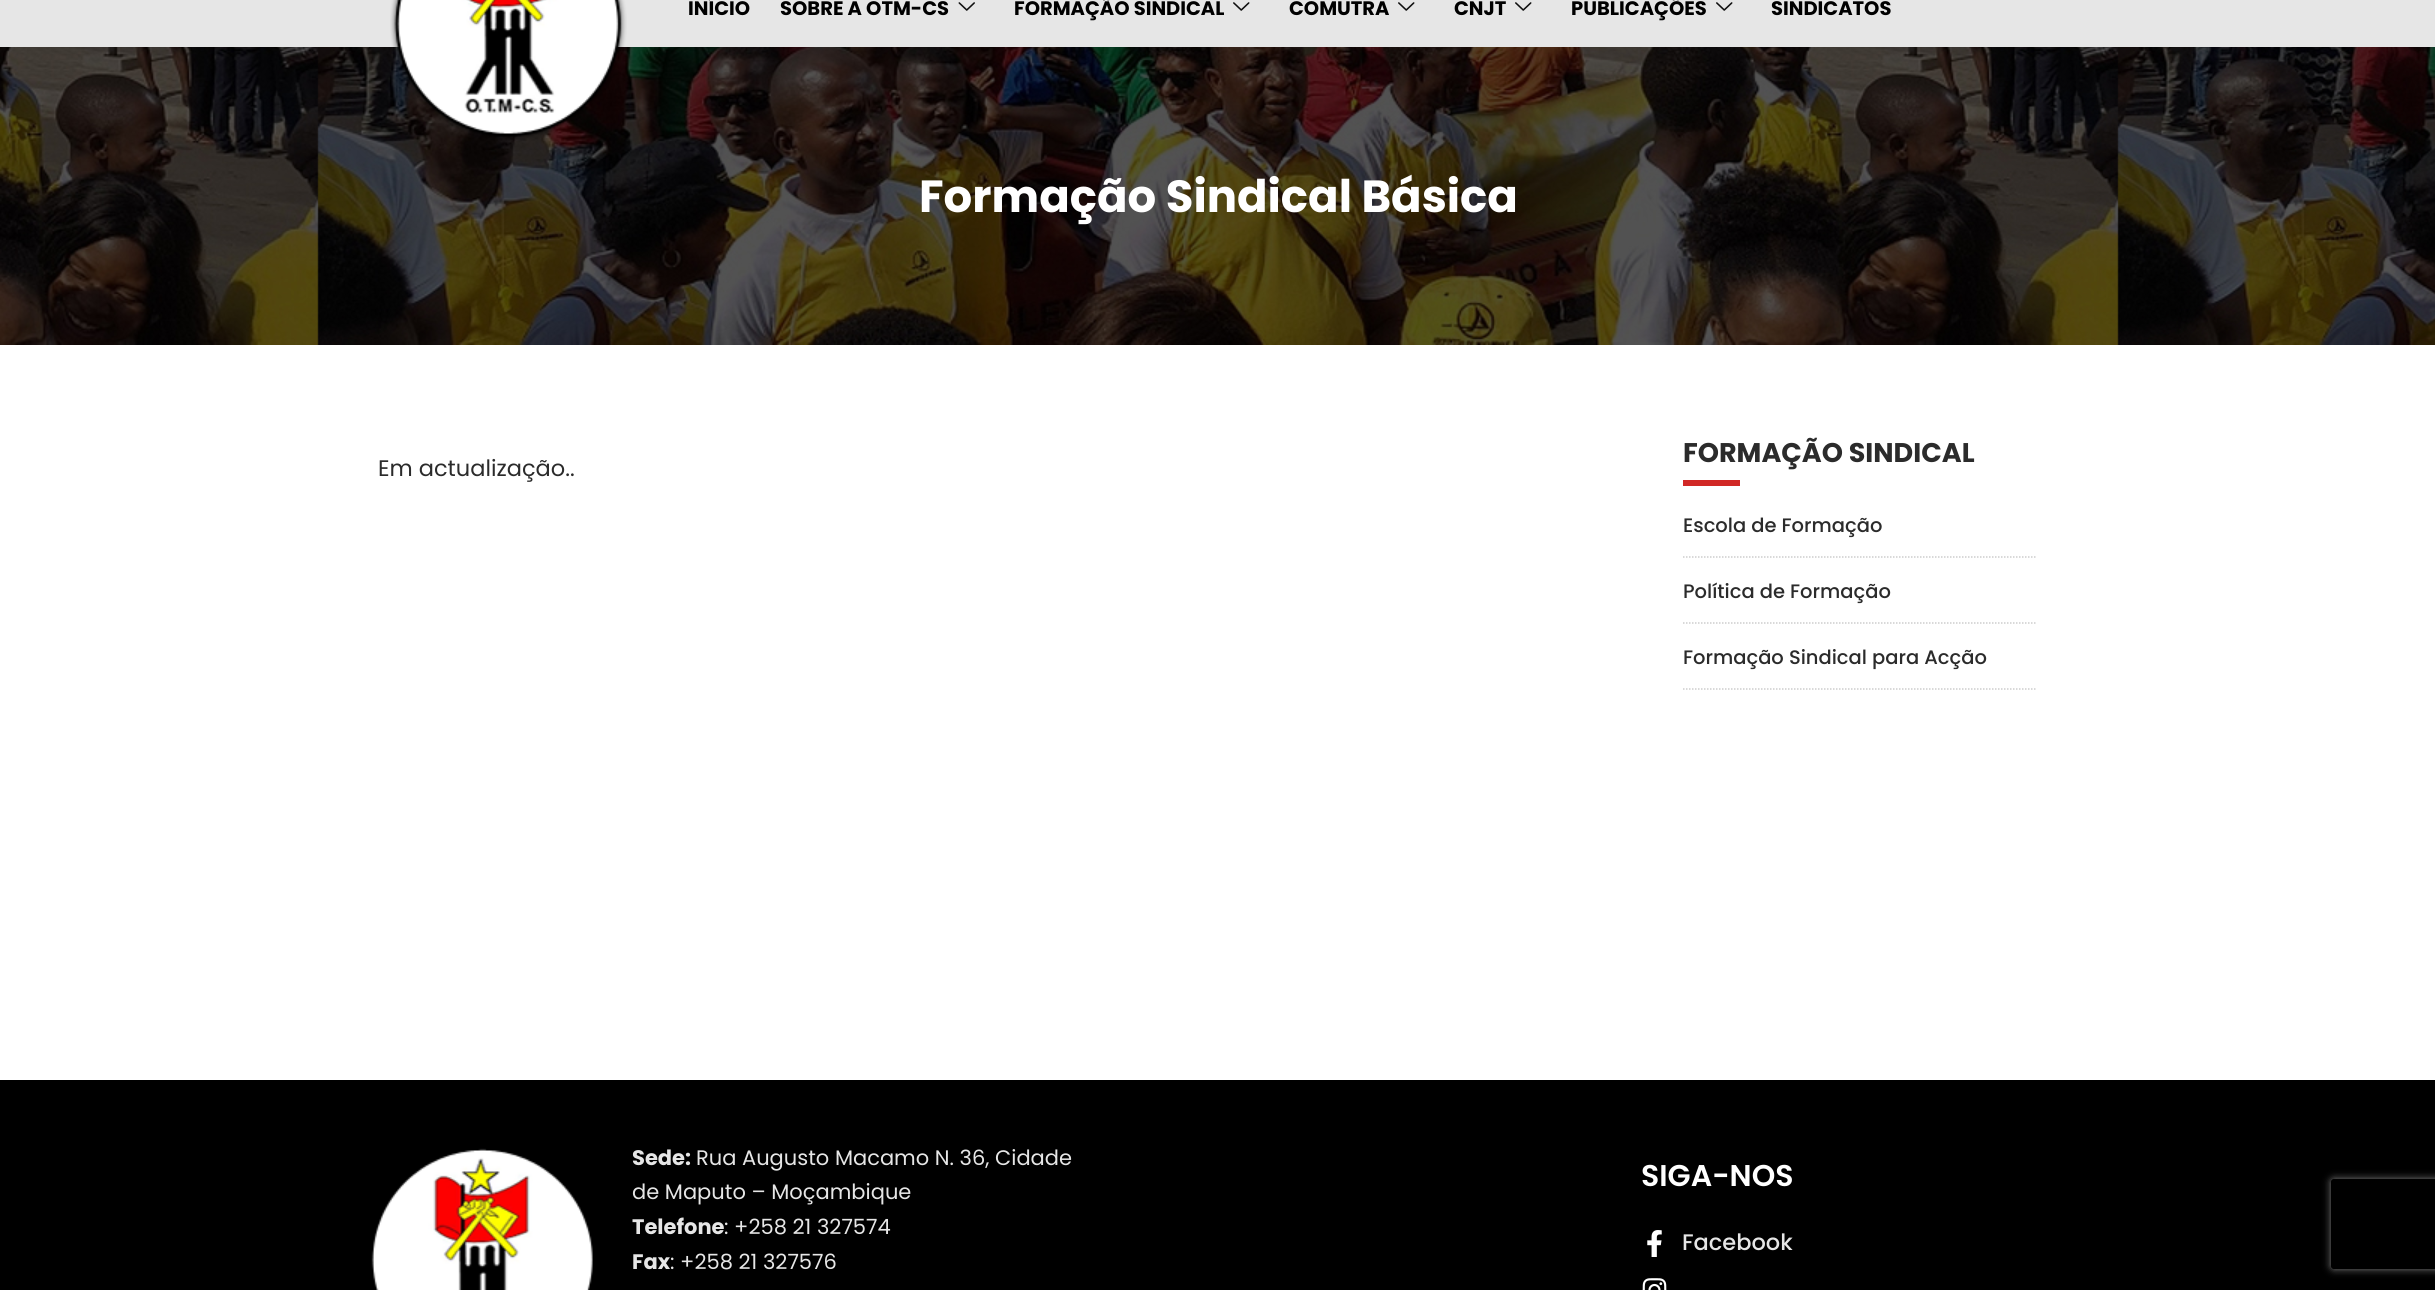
#include <cairo.h>
#include <math.h>
#include <stddef.h>

typedef struct { const char *family; double size; int italic, bold; unsigned color; } style_t;
static cairo_t *ctx;

static void ink(unsigned color) {
    cairo_set_source_rgb(ctx, (color >> 16) / 255.0, (color >> 8 & 255) / 255.0, (color & 255) / 255.0);
}

static void write(double x, double y, const char *s, const style_t *st) {
    cairo_select_font_face(ctx, st->family, st->italic ? CAIRO_FONT_SLANT_ITALIC : CAIRO_FONT_SLANT_NORMAL,
        st->bold ? CAIRO_FONT_WEIGHT_BOLD : CAIRO_FONT_WEIGHT_NORMAL);
    cairo_set_font_size(ctx, st->size);
    ink(st->color);
    cairo_move_to(ctx, x, y);
    cairo_show_text(ctx, s);
}

static void block(double x, double y, double w, double h, unsigned color) {
    ink(color);
    cairo_rectangle(ctx, x, y, w, h);
    cairo_fill(ctx);
}

static void round_path(double x, double y, double w, double h, double r) {
    cairo_new_sub_path(ctx);
    cairo_arc(ctx, x + w - r, y + h - r, r, 0, M_PI / 2);
    cairo_arc(ctx, x + r, y + h - r, r, M_PI / 2, M_PI);
    cairo_arc(ctx, x + r, y + r, r, M_PI, 1.5 * M_PI);
    cairo_arc(ctx, x + w - r, y + r, r, 1.5 * M_PI, 2 * M_PI);
    cairo_close_path(ctx);
}

static void blur_box(double x, double y, double w, double h, double r, double blur, double alpha) {
    cairo_push_group_with_content(ctx, CAIRO_CONTENT_ALPHA);
    cairo_set_operator(ctx, CAIRO_OPERATOR_SOURCE);
    for (int i = 15; i >= -15 && fmin(w, h) + blur * i / 3 > 0; i -= 2) {
        double e = blur * i / 6;
        cairo_set_source_rgba(ctx, 0, 0, 0, alpha * erfc((i - 1) / 8.5) / 2);
        round_path(x - e, y - e, w + 2 * e, h + 2 * e, fmax(0, fmin(r + e + blur * .6, fmin(w, h) / 2 + e)));
        cairo_fill(ctx);
    }
    cairo_pattern_t *soft = cairo_pop_group(ctx);
    cairo_mask(ctx, soft);
    cairo_pattern_destroy(soft);
}

static void paste(const char *path, double x, double y, double w, double h) {
    cairo_surface_t *image = cairo_image_surface_create_from_png(path);
    cairo_save(ctx);
    cairo_set_source_surface(ctx, image, x, y);
    cairo_rectangle(ctx, x, y, w, h);
    cairo_fill(ctx);
    cairo_restore(ctx);
    cairo_surface_destroy(image);
}

static const style_t s1 = {"Poppins", 19.5, 0, 1, 0x000000};
static const style_t s2 = {"Poppins", 45, 0, 1, 0xffffff};
static const style_t s3 = {"Poppins", 22.5, 0, 0, 0x2b2b2b};
static const style_t s4 = {"Poppins", 27, 0, 1, 0x2b2b2b};
static const style_t s5 = {"Poppins Medium", 19.5, 0, 0, 0x2b2b2b};
static const style_t s6 = {"Poppins", 21, 0, 1, 0xe6e6e6};
static const style_t s7 = {"Poppins", 21, 0, 0, 0xe6e6e6};
static const style_t s8 = {"Poppins SemiBold", 30, 0, 0, 0xffffff};
static const style_t s9 = {"Poppins Medium", 22.5, 0, 0, 0xe6e6e6};

int main(void) {
    cairo_surface_t *surface = cairo_image_surface_create(CAIRO_FORMAT_RGB24, 2435, 1290);
    ctx = cairo_create(surface);
    cairo_font_options_t *options = cairo_font_options_create();
    cairo_font_options_set_hint_metrics(options, CAIRO_HINT_METRICS_OFF);
    cairo_font_options_set_hint_style(options, CAIRO_HINT_STYLE_NONE);
    cairo_set_font_options(ctx, options);
    cairo_set_miter_limit(ctx, 4);
    ink(0xffffff);
    cairo_paint(ctx);
    block(0, 0, 2435, 47, 0xe6e6e6);
    paste("pic4.png", 0, 47, 2435, 298);
    paste("pic1.png", 390, 0, 237, 140);
    write(688, 15, "INÍCIO", &s1);
    write(780, 15, "SOBRE A OTM-CS", &s1);
    paste("pic2.png", 958, 2, 17, 9);
    write(1014, 15, "FORMAÇÃO SINDICAL", &s1);
    paste("pic3.png", 1233, 2, 17, 9);
    write(1289, 15, "COMUTRA", &s1);
    paste("pic3.png", 1398, 2, 17, 9);
    write(1454, 15, "CNJT", &s1);
    paste("pic3.png", 1515, 2, 17, 9);
    write(1571, 15, "PUBLICAÇÕES", &s1);
    paste("pic3.png", 1716, 2, 17, 9);
    write(1771, 15, "SINDICATOS", &s1);
    write(919, 212, "Formação Sindical Básica", &s2);
    write(378, 476, "Em actualização..", &s3);
    write(1683, 462, "FORMAÇÃO SINDICAL", &s4);
    block(1683, 480, 57, 6, 0xd12826);
    cairo_new_path(ctx);
    cairo_move_to(ctx, 1683, 557);
    cairo_line_to(ctx, 2035.5, 557);
    ink(0xcccccc);
    cairo_set_line_width(ctx, 1.5);
    cairo_set_dash(ctx, (double[]){1.5, 1.5}, 2, 0);
    cairo_stroke(ctx);
    write(1683, 532, "Escola de Formação", &s5);
    cairo_new_path(ctx);
    cairo_move_to(ctx, 1683, 623);
    cairo_line_to(ctx, 2035.5, 623);
    ink(0xcccccc);
    cairo_stroke(ctx);
    write(1683, 598, "Política de Formação", &s5);
    cairo_new_path(ctx);
    cairo_move_to(ctx, 1683, 689);
    cairo_line_to(ctx, 2035.5, 689);
    ink(0xcccccc);
    cairo_stroke(ctx);
    write(1683, 664, "Formação Sindical para Acção", &s5);
    block(0, 1080, 2435, 210, 0x000000);
    paste("pic5.png", 371, 1148, 222, 142);
    write(632, 1165, "Sede:", &s6);
    write(696, 1165, "Rua Augusto Macamo N. 36, Cidade", &s7);
    write(632, 1199, "de Maputo – Moçambique", &s7);
    write(632, 1234, "Telefone", &s6);
    write(724, 1234, ": +258 21 327574", &s7);
    write(632, 1269, "Fax", &s6);
    write(670, 1269, ": +258 21 327576", &s7);
    write(1641, 1186, "SIGA-NOS", &s8);
    paste("pic6.png", 1647, 1230, 15, 27);
    write(1682, 1250, "Facebook", &s9);
    paste("pic7.png", 1642, 1278, 25, 12);
    cairo_save(ctx);
    cairo_set_fill_rule(ctx, CAIRO_FILL_RULE_EVEN_ODD);
    cairo_new_path(ctx);
    cairo_move_to(ctx, 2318, 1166);
    cairo_line_to(ctx, 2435, 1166);
    cairo_line_to(ctx, 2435, 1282);
    cairo_line_to(ctx, 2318, 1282);
    cairo_close_path(ctx);
    cairo_move_to(ctx, 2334, 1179);
    cairo_line_to(ctx, 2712, 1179);
    cairo_curve_to(ctx, 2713.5, 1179, 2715, 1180.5, 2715, 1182);
    cairo_line_to(ctx, 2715, 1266);
    cairo_curve_to(ctx, 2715, 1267.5, 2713.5, 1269, 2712, 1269);
    cairo_line_to(ctx, 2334, 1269);
    cairo_curve_to(ctx, 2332.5, 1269, 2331, 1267.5, 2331, 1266);
    cairo_line_to(ctx, 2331, 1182);
    cairo_curve_to(ctx, 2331, 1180.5, 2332.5, 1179, 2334, 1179);
    cairo_close_path(ctx);
    cairo_clip(ctx);
    ink(0x808080);
    blur_box(2331, 1179, 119, 90, 3, 4, 1);
    cairo_restore(ctx);
    cairo_surface_write_to_png(surface, "screenshot.png");
    cairo_font_options_destroy(options);
    cairo_destroy(ctx);
    cairo_surface_destroy(surface);
    return 0;
}
